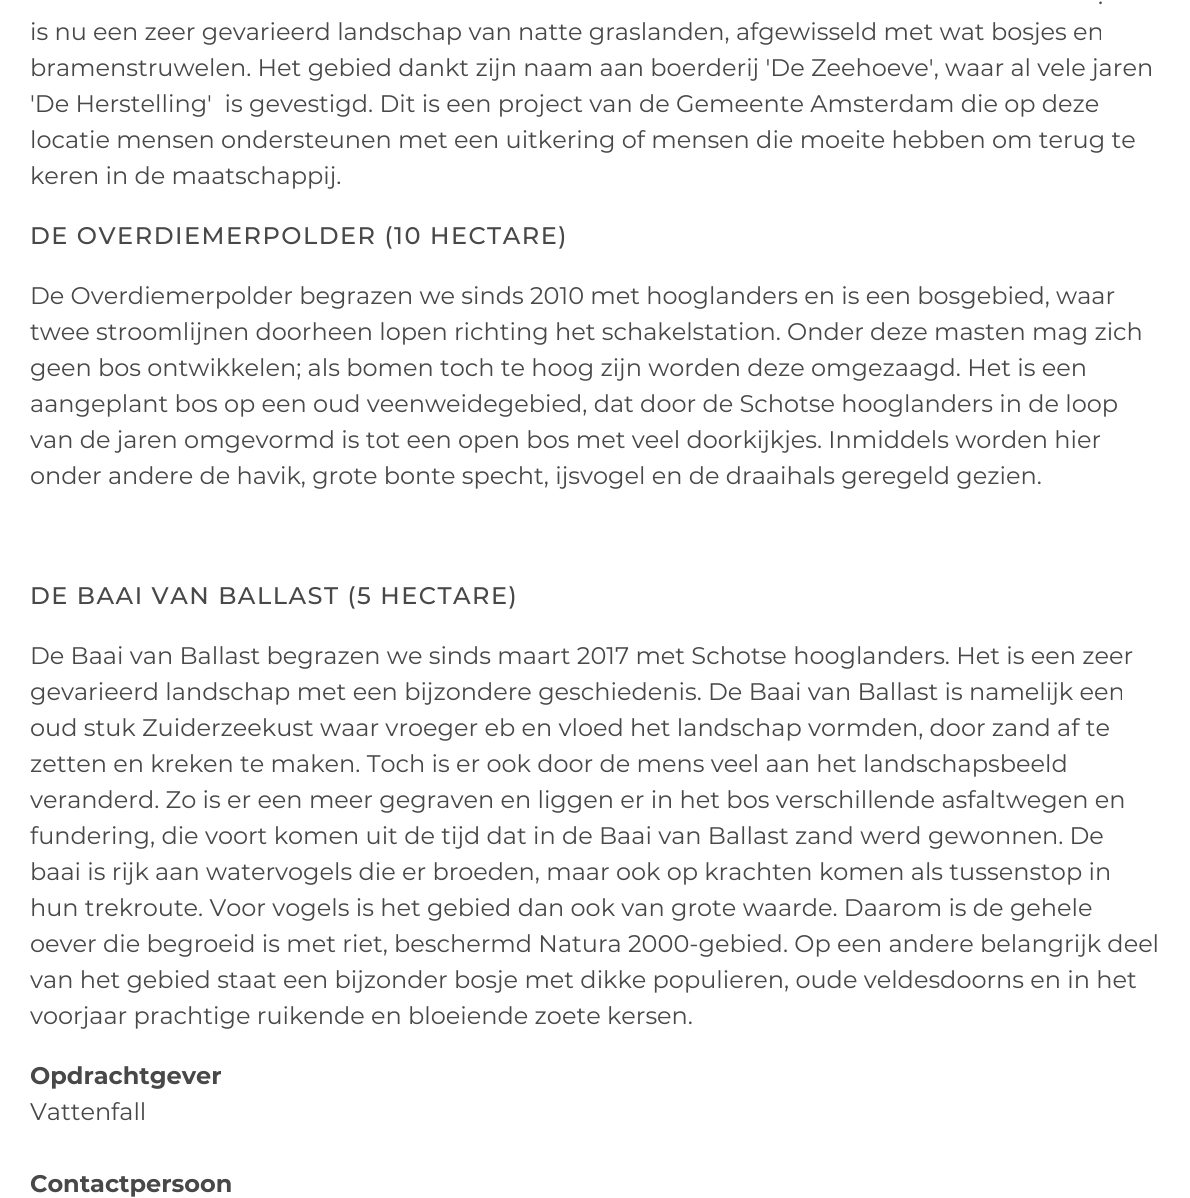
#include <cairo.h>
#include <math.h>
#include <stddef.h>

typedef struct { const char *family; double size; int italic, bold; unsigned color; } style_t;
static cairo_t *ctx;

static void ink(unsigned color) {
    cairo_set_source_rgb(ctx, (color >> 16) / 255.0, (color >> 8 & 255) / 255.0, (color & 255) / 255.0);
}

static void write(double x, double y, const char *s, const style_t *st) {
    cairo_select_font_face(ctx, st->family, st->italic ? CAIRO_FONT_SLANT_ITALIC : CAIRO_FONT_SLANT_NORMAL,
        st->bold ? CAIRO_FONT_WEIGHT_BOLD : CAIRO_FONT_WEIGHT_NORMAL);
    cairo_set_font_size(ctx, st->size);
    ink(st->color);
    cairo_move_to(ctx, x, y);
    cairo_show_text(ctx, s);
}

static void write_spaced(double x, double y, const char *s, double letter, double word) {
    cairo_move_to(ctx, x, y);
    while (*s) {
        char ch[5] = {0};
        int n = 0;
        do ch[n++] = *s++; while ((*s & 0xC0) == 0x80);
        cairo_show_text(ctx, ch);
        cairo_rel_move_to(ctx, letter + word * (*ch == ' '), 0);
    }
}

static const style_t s1 = {"Montserrat", 24, 0, 0, 0x484848};
static const style_t s2 = {"Montserrat", 24, 0, 1, 0x484848};

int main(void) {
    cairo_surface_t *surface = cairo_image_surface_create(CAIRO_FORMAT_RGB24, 1190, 1198);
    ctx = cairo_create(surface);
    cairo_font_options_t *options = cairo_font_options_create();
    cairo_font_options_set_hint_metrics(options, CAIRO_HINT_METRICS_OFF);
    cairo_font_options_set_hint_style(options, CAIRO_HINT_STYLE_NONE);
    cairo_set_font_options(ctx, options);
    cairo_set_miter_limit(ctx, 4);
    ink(0xffffff);
    cairo_paint(ctx);
    write(1098, 4, ".", &s1);
    write(30, 40, "is nu een zeer gevarieerd landschap van natte graslanden, afgewisseld met wat bosjes en", &s1);
    write(30, 76, "bramenstruwelen. Het gebied dankt zijn naam aan boerderij 'De Zeehoeve', waar al vele jaren", &s1);
    write(30, 112, "'De Herstelling'  is gevestigd. Dit is een project van de Gemeente Amsterdam die op deze", &s1);
    write(30, 148, "locatie mensen ondersteunen met een uitkering of mensen die moeite hebben om terug te", &s1);
    write(30, 184, "keren in de maatschappij.", &s1);
    cairo_select_font_face(ctx, "Montserrat Medium", CAIRO_FONT_SLANT_NORMAL, CAIRO_FONT_WEIGHT_NORMAL);
    write_spaced(30, 244, "DE OVERDIEMERPOLDER (10 HECTARE)", 1.5, 0);
    write(30, 304, "De Overdiemerpolder begrazen we sinds 2010 met hooglanders en is een bosgebied, waar", &s1);
    write(30, 340, "twee stroomlijnen doorheen lopen richting het schakelstation. Onder deze masten mag zich", &s1);
    write(30, 376, "geen bos ontwikkelen; als bomen toch te hoog zijn worden deze omgezaagd. Het is een", &s1);
    write(30, 412, "aangeplant bos op een oud veenweidegebied, dat door de Schotse hooglanders in de loop", &s1);
    write(30, 448, "van de jaren omgevormd is tot een open bos met veel doorkijkjes. Inmiddels worden hier", &s1);
    write(30, 484, "onder andere de havik, grote bonte specht, ijsvogel en de draaihals geregeld gezien.", &s1);
    cairo_select_font_face(ctx, "Montserrat Medium", CAIRO_FONT_SLANT_NORMAL, CAIRO_FONT_WEIGHT_NORMAL);
    write_spaced(30, 604, "DE BAAI VAN BALLAST (5 HECTARE)", 1.5, 0);
    write(30, 664, "De Baai van Ballast begrazen we sinds maart 2017 met Schotse hooglanders. Het is een zeer", &s1);
    write(30, 700, "gevarieerd landschap met een bijzondere geschiedenis. De Baai van Ballast is namelijk een", &s1);
    write(30, 736, "oud stuk Zuiderzeekust waar vroeger eb en vloed het landschap vormden, door zand af te", &s1);
    write(30, 772, "zetten en kreken te maken. Toch is er ook door de mens veel aan het landschapsbeeld", &s1);
    write(30, 808, "veranderd. Zo is er een meer gegraven en liggen er in het bos verschillende asfaltwegen en", &s1);
    write(30, 844, "fundering, die voort komen uit de tijd dat in de Baai van Ballast zand werd gewonnen. De", &s1);
    write(30, 880, "baai is rijk aan watervogels die er broeden, maar ook op krachten komen als tussenstop in", &s1);
    write(30, 916, "hun trekroute. Voor vogels is het gebied dan ook van grote waarde. Daarom is de gehele", &s1);
    write(30, 952, "oever die begroeid is met riet, beschermd Natura 2000-gebied. Op een andere belangrijk deel", &s1);
    write(30, 988, "van het gebied staat een bijzonder bosje met dikke populieren, oude veldesdoorns en in het", &s1);
    write(30, 1024, "voorjaar prachtige ruikende en bloeiende zoete kersen.", &s1);
    write(30, 1084, "Opdrachtgever", &s2);
    write(30, 1120, "Vattenfall", &s1);
    write(30, 1192, "Contactpersoon", &s2);
    cairo_surface_write_to_png(surface, "screenshot.png");
    cairo_font_options_destroy(options);
    cairo_destroy(ctx);
    cairo_surface_destroy(surface);
    return 0;
}
